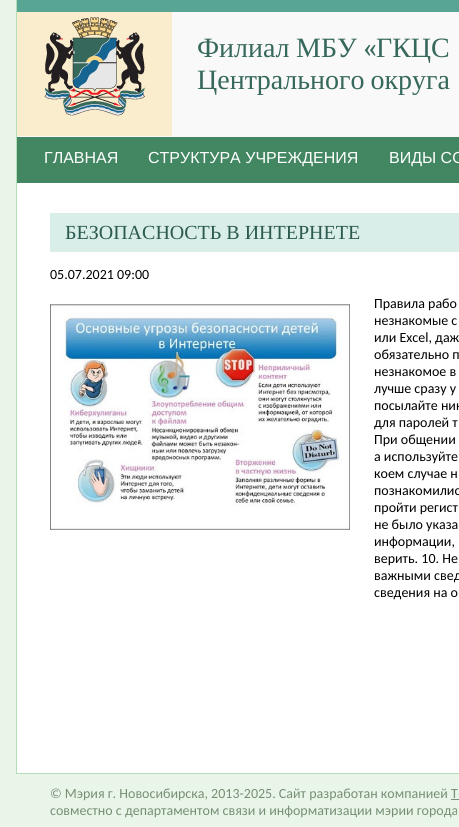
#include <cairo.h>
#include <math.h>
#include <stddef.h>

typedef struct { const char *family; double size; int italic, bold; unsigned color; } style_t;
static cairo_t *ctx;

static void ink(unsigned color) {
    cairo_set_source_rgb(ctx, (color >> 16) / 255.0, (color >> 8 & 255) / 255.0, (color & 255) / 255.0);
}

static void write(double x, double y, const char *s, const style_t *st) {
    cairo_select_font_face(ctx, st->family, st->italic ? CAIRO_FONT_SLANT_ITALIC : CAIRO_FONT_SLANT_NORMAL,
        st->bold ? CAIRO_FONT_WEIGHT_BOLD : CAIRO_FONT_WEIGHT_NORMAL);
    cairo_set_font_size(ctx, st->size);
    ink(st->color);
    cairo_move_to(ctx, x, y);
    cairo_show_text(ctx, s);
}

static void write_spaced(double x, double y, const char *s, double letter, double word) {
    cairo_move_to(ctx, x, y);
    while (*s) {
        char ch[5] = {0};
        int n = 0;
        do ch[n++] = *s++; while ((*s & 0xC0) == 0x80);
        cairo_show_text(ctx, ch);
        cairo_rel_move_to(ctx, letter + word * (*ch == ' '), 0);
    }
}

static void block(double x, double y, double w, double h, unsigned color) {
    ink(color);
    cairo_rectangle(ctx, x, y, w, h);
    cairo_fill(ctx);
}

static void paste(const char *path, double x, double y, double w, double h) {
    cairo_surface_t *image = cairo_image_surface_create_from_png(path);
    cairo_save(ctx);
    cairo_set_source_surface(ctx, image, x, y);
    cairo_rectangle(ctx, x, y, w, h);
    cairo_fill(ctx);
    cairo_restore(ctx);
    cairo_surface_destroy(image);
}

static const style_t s1 = {"Liberation Serif", 28, 0, 0, 0x36685c};
static const style_t s2 = {"Caladea", 28, 0, 0, 0x36685c};
static const style_t s3 = {"Liberation Sans", 16, 0, 0, 0xffffff};
static const style_t s4 = {"Liberation Serif", 20, 0, 0, 0x2c5a50};
static const style_t s5 = {"Carlito", 14, 0, 0, 0x000000};
static const style_t s6 = {"Carlito", 14, 0, 0, 0x778f75};

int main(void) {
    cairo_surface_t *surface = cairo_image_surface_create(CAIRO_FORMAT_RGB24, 459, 827);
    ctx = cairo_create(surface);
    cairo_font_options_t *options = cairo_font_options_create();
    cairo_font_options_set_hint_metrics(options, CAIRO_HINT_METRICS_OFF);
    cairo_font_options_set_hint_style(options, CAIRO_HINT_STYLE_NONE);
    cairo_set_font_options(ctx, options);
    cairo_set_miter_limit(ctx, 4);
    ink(0xe9f5e9);
    cairo_paint(ctx);
    block(17, 183, 442, 590, 0xffffff);
    block(16, 773, 443, 1, 0xb4deba);
    block(16, 0, 1, 774, 0xb4deba);
    block(17, 12, 442, 125, 0xf9f9f9);
    block(17, 0, 442, 12, 0x58a593);
    block(17, 12, 155, 124, 0xfaedcd);
    paste("pic1.png", 44, 17, 101, 99);
    write(197, 57, "Филиал", &s1);
    write(296, 57, "МБУ", &s1);
    write(363, 57, "«", &s2);
    write(376, 57, "ГКЦС", &s1);
    write_spaced(197, 89, "Центрального округа", 0, -1);
    block(17, 137, 442, 46, 0x428662);
    write(44, 163, "ГЛАВНАЯ", &s3);
    write(148, 163, "СТРУКТУРА УЧРЕЖДЕНИЯ", &s3);
    write(389, 163, "ВИДЫ СО", &s3);
    block(50, 213, 409, 39, 0xd9eee9);
    write(65, 239, "БЕЗОПАСНОСТЬ В ИНТЕРНЕТЕ", &s4);
    write(50, 279, "05.07.2021 09:00", &s5);
    paste("pic2.png", 50, 304, 300, 226);
    write(374, 308, "Правила рабо", &s5);
    write(374, 325, "незнакомые с", &s5);
    write(374, 342, "или Excel, даж", &s5);
    write(374, 359, "обязательно п", &s5);
    write(374, 376, "незнакомое в", &s5);
    write(374, 393, "лучше сразу у", &s5);
    write(374, 410, "посылайте ник", &s5);
    write(374, 427, "для паролей т", &s5);
    write(374, 444, "При общении", &s5);
    write(374, 461, "а используйте", &s5);
    write(374, 478, "коем случае н", &s5);
    write(374, 495, "познакомилис", &s5);
    write(374, 512, "пройти регист", &s5);
    write(374, 529, "не было указа", &s5);
    write(374, 546, "информации,", &s5);
    write(374, 563, "верить. 10. Не", &s5);
    write(374, 580, "важными свед", &s5);
    write(374, 597, "сведения на о", &s5);
    write(50, 798, "© Мэрия г. Новосибирска, 2013-2025. Сайт разработан компанией Т", &s6);
    block(451, 799, 8, 1, 0x778f75);
    write(50, 815, "совместно с департаментом связи и информатизации мэрии города", &s6);
    cairo_surface_write_to_png(surface, "screenshot.png");
    cairo_font_options_destroy(options);
    cairo_destroy(ctx);
    cairo_surface_destroy(surface);
    return 0;
}
